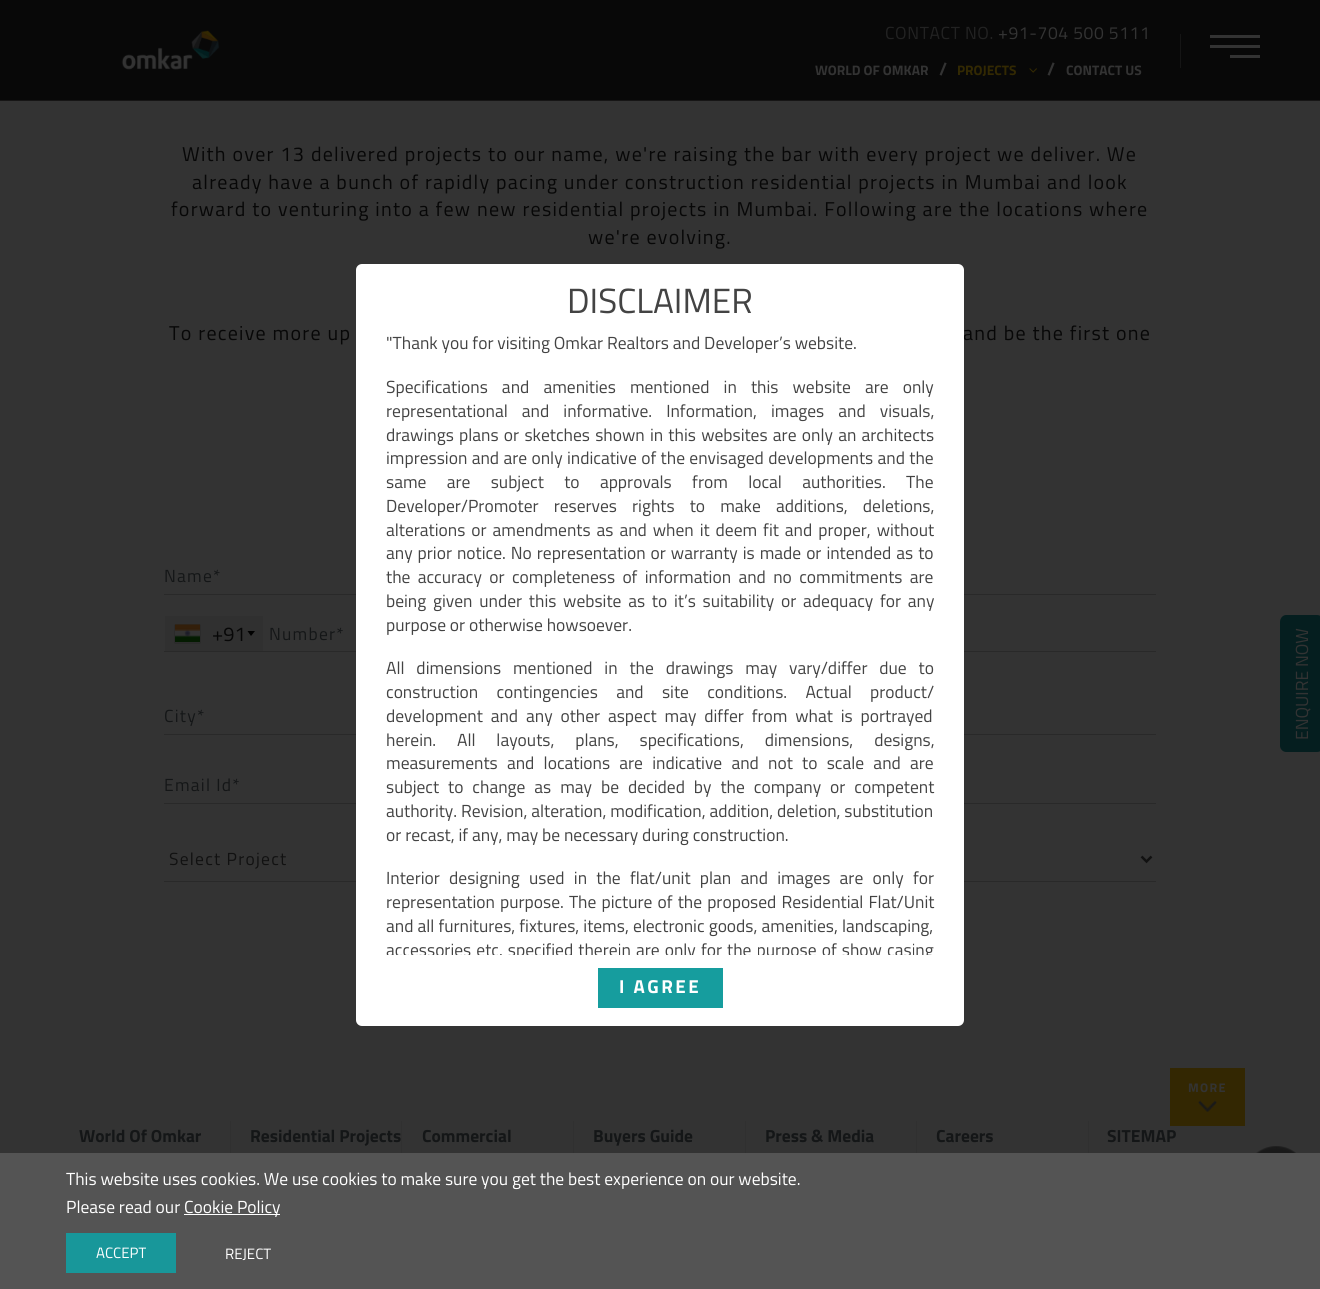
#include <cairo.h>
#include <math.h>
#include <stddef.h>

typedef struct { const char *family; double size; int italic, bold; unsigned color; } style_t;
static cairo_t *ctx;

static void ink(unsigned color) {
    cairo_set_source_rgb(ctx, (color >> 16) / 255.0, (color >> 8 & 255) / 255.0, (color & 255) / 255.0);
}

static void write(double x, double y, const char *s, const style_t *st) {
    cairo_select_font_face(ctx, st->family, st->italic ? CAIRO_FONT_SLANT_ITALIC : CAIRO_FONT_SLANT_NORMAL,
        st->bold ? CAIRO_FONT_WEIGHT_BOLD : CAIRO_FONT_WEIGHT_NORMAL);
    cairo_set_font_size(ctx, st->size);
    ink(st->color);
    cairo_move_to(ctx, x, y);
    cairo_show_text(ctx, s);
}

static void write_spaced(double x, double y, const char *s, double letter, double word) {
    cairo_move_to(ctx, x, y);
    while (*s) {
        char ch[5] = {0};
        int n = 0;
        do ch[n++] = *s++; while ((*s & 0xC0) == 0x80);
        cairo_show_text(ctx, ch);
        cairo_rel_move_to(ctx, letter + word * (*ch == ' '), 0);
    }
}

static void block(double x, double y, double w, double h, unsigned color) {
    ink(color);
    cairo_rectangle(ctx, x, y, w, h);
    cairo_fill(ctx);
}

static void round_path(double x, double y, double w, double h, double r) {
    cairo_new_sub_path(ctx);
    cairo_arc(ctx, x + w - r, y + h - r, r, 0, M_PI / 2);
    cairo_arc(ctx, x + r, y + h - r, r, M_PI / 2, M_PI);
    cairo_arc(ctx, x + r, y + r, r, M_PI, 1.5 * M_PI);
    cairo_arc(ctx, x + w - r, y + r, r, 1.5 * M_PI, 2 * M_PI);
    cairo_close_path(ctx);
}

static void blur_box(double x, double y, double w, double h, double r, double blur, double alpha) {
    cairo_push_group_with_content(ctx, CAIRO_CONTENT_ALPHA);
    cairo_set_operator(ctx, CAIRO_OPERATOR_SOURCE);
    for (int i = 15; i >= -15 && fmin(w, h) + blur * i / 3 > 0; i -= 2) {
        double e = blur * i / 6;
        cairo_set_source_rgba(ctx, 0, 0, 0, alpha * erfc((i - 1) / 8.5) / 2);
        round_path(x - e, y - e, w + 2 * e, h + 2 * e, fmax(0, fmin(r + e + blur * .6, fmin(w, h) / 2 + e)));
        cairo_fill(ctx);
    }
    cairo_pattern_t *soft = cairo_pop_group(ctx);
    cairo_mask(ctx, soft);
    cairo_pattern_destroy(soft);
}

static void paste(const char *path, double x, double y, double w, double h) {
    cairo_surface_t *image = cairo_image_surface_create_from_png(path);
    cairo_save(ctx);
    cairo_set_source_surface(ctx, image, x, y);
    cairo_rectangle(ctx, x, y, w, h);
    cairo_fill(ctx);
    cairo_restore(ctx);
    cairo_surface_destroy(image);
}

static const style_t s1 = {"Titillium Web", 13.75, 0, 1, 0x333333};
static const style_t s2 = {"Titillium Web", 17.5, 0, 1, 0x333333};
static const style_t s3 = {"Titillium Web", 13.75, 0, 1, 0x332902};
static const style_t s4 = {"Titillium Web", 20, 0, 0, 0x070707};
static const style_t s5 = {"Titillium Web", 17.5, 0, 0, 0x333333};
static const style_t s6 = {"Titillium Web", 17.5, 0, 1, 0x141617};
static const style_t s7 = {"Titillium Web", 35, 0, 0, 0x434343};
static const style_t s8 = {"Titillium Web", 17.5, 0, 0, 0x434343};
static const style_t s9 = {"Titillium Web", 17.5, 0, 0, 0xffffff};
static const style_t s10 = {"Titillium Web", 15, 0, 0, 0xffffff};

int main(void) {
    cairo_surface_t *surface = cairo_image_surface_create(CAIRO_FORMAT_RGB24, 1320, 1289);
    ctx = cairo_create(surface);
    cairo_font_options_t *options = cairo_font_options_create();
    cairo_font_options_set_hint_metrics(options, CAIRO_HINT_METRICS_OFF);
    cairo_font_options_set_hint_style(options, CAIRO_HINT_STYLE_NONE);
    cairo_set_font_options(ctx, options);
    cairo_set_miter_limit(ctx, 4);
    ink(0x333333);
    cairo_paint(ctx);
    block(0, 0, 1320, 100, 0x080808);
    block(0, 100, 1320, 1, 0x161515);
    paste("pic1.png", 121, 30, 99, 40);
    cairo_select_font_face(ctx, "Titillium Web", CAIRO_FONT_SLANT_NORMAL, CAIRO_FONT_WEIGHT_NORMAL);
    cairo_set_font_size(ctx, 17.5);
    ink(0x222222);
    write_spaced(885, 39, "CONTACT NO.", 0.6, 0);
    ink(0x333333);
    write_spaced(998, 39, "+91-704 500 5111", 0.6, 0);
    write(815, 75, "WORLD OF OMKAR", &s1);
    write(939, 75, "/", &s2);
    write(957, 75, "PROJECTS", &s3);
    paste("pic2.png", 1029, 68, 8, 5);
    write(1047, 75, "/", &s2);
    write(1066, 75, "CONTACT US", &s1);
    block(1180, 34, 1, 34, 0x151515);
    block(1210, 35, 50, 3, 0x333333);
    block(1210, 45, 50, 3, 0x333333);
    block(1230, 55, 30, 3, 0x333333);
    cairo_select_font_face(ctx, "Titillium Web", CAIRO_FONT_SLANT_NORMAL, CAIRO_FONT_WEIGHT_NORMAL);
    cairo_set_font_size(ctx, 20);
    ink(0x070707);
    write_spaced(182, 161, "With over 13 delivered projects to our name, we're raising the bar with every project we deliver. We", 1.25, 0);
    write_spaced(192, 189, "already have a bunch of rapidly pacing under construction residential projects in Mumbai and look", 1.25, 0);
    write_spaced(171, 216, "forward to venturing into a few new residential projects in Mumbai. Following are the locations where", 1.25, 0);
    write_spaced(588, 244, "we're evolving.", 1.25, 0);
    write_spaced(169, 340, "To receive more up", 1.25, 0);
    write_spaced(963, 340, "and be the first one", 1.25, 0);
    block(164, 594, 992, 1, 0x292929);
    cairo_set_font_size(ctx, 17.5);
    ink(0x141617);
    write_spaced(164, 582, "Name*", 1.25, 0);
    block(165, 616, 98, 35, 0x303030);
    ink(0x1b1b1b);
    blur_box(175, 625, 25, 18, 0, 0.5, 1);
    block(175, 642, 25, 1, 0x2c2c2c);
    paste("pic3.png", 175, 624, 25, 18);
    write(212, 641, "+91", &s4);
    ink(0x000000);
    cairo_new_path(ctx);
    cairo_move_to(ctx, 247.5, 631);
    cairo_line_to(ctx, 255, 631);
    cairo_line_to(ctx, 251, 636);
    cairo_close_path(ctx);
    cairo_fill(ctx);
    block(164, 651, 992, 1, 0x292929);
    cairo_set_font_size(ctx, 17.5);
    ink(0x141617);
    write_spaced(269, 640, "Number*", 1.25, 0);
    block(164, 734, 992, 1, 0x292929);
    ink(0x141617);
    write_spaced(164, 722, "City*", 1.25, 0);
    block(164, 803, 992, 1, 0x292929);
    ink(0x141617);
    write_spaced(164, 791, "Email Id*", 1.25, 0);
    block(164, 881, 992, 1, 0x292929);
    cairo_new_path(ctx);
    cairo_move_to(ctx, 1141.5, 856.5);
    cairo_line_to(ctx, 1146.5, 861.5);
    cairo_line_to(ctx, 1151.5, 856.5);
    ink(0x111111);
    cairo_set_line_width(ctx, 2.5);
    cairo_stroke(ctx);
    write_spaced(169, 865, "Select Project", 1.25, 0);
    ink(0x051e1f);
    cairo_new_path(ctx);
    cairo_move_to(ctx, 1280, 746);
    cairo_line_to(ctx, 1280, 622);
    cairo_curve_to(ctx, 1280, 618, 1283, 615, 1286, 615);
    cairo_line_to(ctx, 1317, 615);
    cairo_curve_to(ctx, 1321, 615, 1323, 618, 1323, 622);
    cairo_line_to(ctx, 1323, 746);
    cairo_curve_to(ctx, 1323, 749, 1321, 752, 1317, 752);
    cairo_line_to(ctx, 1286, 752);
    cairo_curve_to(ctx, 1283, 752, 1280, 749, 1280, 746);
    cairo_close_path(ctx);
    cairo_fill(ctx);
    cairo_save(ctx);
    cairo_translate(ctx, 1308, 740);
    cairo_rotate(ctx, -90 * M_PI / 180);
    write(0, 0, "ENQUIRE NOW", &s5);
    cairo_restore(ctx);
    block(1170, 1068, 75, 58, 0x332702);
    cairo_select_font_face(ctx, "Titillium Web", CAIRO_FONT_SLANT_NORMAL, CAIRO_FONT_WEIGHT_BOLD);
    cairo_set_font_size(ctx, 12.5);
    ink(0x333333);
    write_spaced(1188, 1092, "MORE", 1.25, 0);
    paste("pic4.png", 1198, 1100, 19, 12);
    block(230, 1121, 1, 32, 0x303030);
    write(79, 1142, "World Of Omkar", &s6);
    block(401, 1121, 1, 32, 0x303030);
    write(250, 1142, "Residential Projects", &s6);
    block(573, 1121, 1, 32, 0x303030);
    write(422, 1142, "Commercial", &s6);
    block(745, 1121, 1, 32, 0x303030);
    write(593, 1142, "Buyers Guide", &s6);
    block(916, 1121, 1, 32, 0x303030);
    write(765, 1142, "Press & Media", &s6);
    block(1088, 1121, 1, 32, 0x303030);
    write(936, 1142, "Careers", &s6);
    write(1107, 1142, "SITEMAP", &s6);
    ink(0xffffff);
    round_path(356, 264, 608, 762, 6);
    cairo_fill(ctx);
    write(567, 313, "DISCLAIMER", &s7);
    write(386, 349, "\"Thank you for visiting Omkar Realtors and Developer’s website.", &s8);
    write_spaced(386, 393, "Specifications and amenities mentioned in this website are only", 0, 10.25);
    write_spaced(386, 417, "representational and informative. Information, images and visuals,", 0, 10.25);
    write_spaced(386, 441, "drawings plans or sketches shown in this websites are only an architects", 0, 1.4);
    write_spaced(386, 464, "impression and are only indicative of the envisaged developments and the", 0, 0.5);
    write_spaced(386, 488, "same are subject to approvals from local authorities. The", 0, 16.5);
    write_spaced(386, 512, "Developer/Promoter reserves rights to make additions, deletions,", 0, 11.25);
    write_spaced(386, 536, "alterations or amendments as and when it deem fit and proper, without", 0, 2.1);
    write_spaced(386, 559, "any prior notice. No representation or warranty is made or intended as to", 0, 1.1);
    write_spaced(386, 583, "the accuracy or completeness of information and no commitments are", 0, 3.5);
    write_spaced(386, 607, "being given under this website as to it’s suitability or adequacy for any", 0, 2.9);
    write(386, 631, "purpose or otherwise howsoever.", &s8);
    write_spaced(386, 674, "All dimensions mentioned in the drawings may vary/differ due to", 0, 8);
    write_spaced(386, 698, "construction contingencies and site conditions. Actual product/", 0, 14.5);
    write_spaced(386, 722, "development and any other aspect may differ from what is portrayed", 0, 4);
    write_spaced(386, 746, "herein. All layouts, plans, specifications, dimensions, designs,", 0, 17);
    write_spaced(386, 769, "measurements and locations are indicative and not to scale and are", 0, 5.4);
    write_spaced(386, 793, "subject to change as may be decided by the company or competent", 0, 5.1);
    write(386, 817, "authority. Revision, alteration, modification, addition, deletion, substitution", &s8);
    write(386, 841, "or recast, if any, may be necessary during construction.", &s8);
    write_spaced(386, 884, "Interior designing used in the flat/unit plan and images are only for", 0, 5.4);
    write_spaced(386, 908, "representation purpose. The picture of the proposed Residential Flat/Unit", 0, 1.25);
    write_spaced(386, 932, "and all furnitures, fixtures, items, electronic goods, amenities, landscaping,", 0, 0.25);
    cairo_save(ctx);
    cairo_rectangle(ctx, 375, 330, 570, 625);
    cairo_clip(ctx);
    write_spaced(386, 956, "accessories etc. specified therein are only for the purpose of show casing", 0, 1.25);
    cairo_restore(ctx);
    block(598, 968, 125, 40, 0x169d9e);
    cairo_select_font_face(ctx, "Titillium Web", CAIRO_FONT_SLANT_NORMAL, CAIRO_FONT_WEIGHT_BOLD);
    cairo_set_font_size(ctx, 18.75);
    ink(0xffffff);
    write_spaced(619, 993, "I AGREE", 2.5, 0);
    paste("pic5.png", 1256, 1146, 40, 7);
    block(0, 1153, 1320, 136, 0x545454);
    write(66, 1185, "This website uses cookies. We use cookies to make sure you get the best experience on our website.", &s9);
    write(66, 1213, "Please read our", &s9);
    block(184, 1214, 96, 1, 0xffffff);
    write(184, 1213, "Cookie Policy", &s9);
    block(66, 1233, 110, 40, 0x18979a);
    write(96, 1258, "ACCEPT", &s10);
    write(225, 1259, "REJECT", &s10);
    cairo_surface_write_to_png(surface, "screenshot.png");
    cairo_font_options_destroy(options);
    cairo_destroy(ctx);
    cairo_surface_destroy(surface);
    return 0;
}
